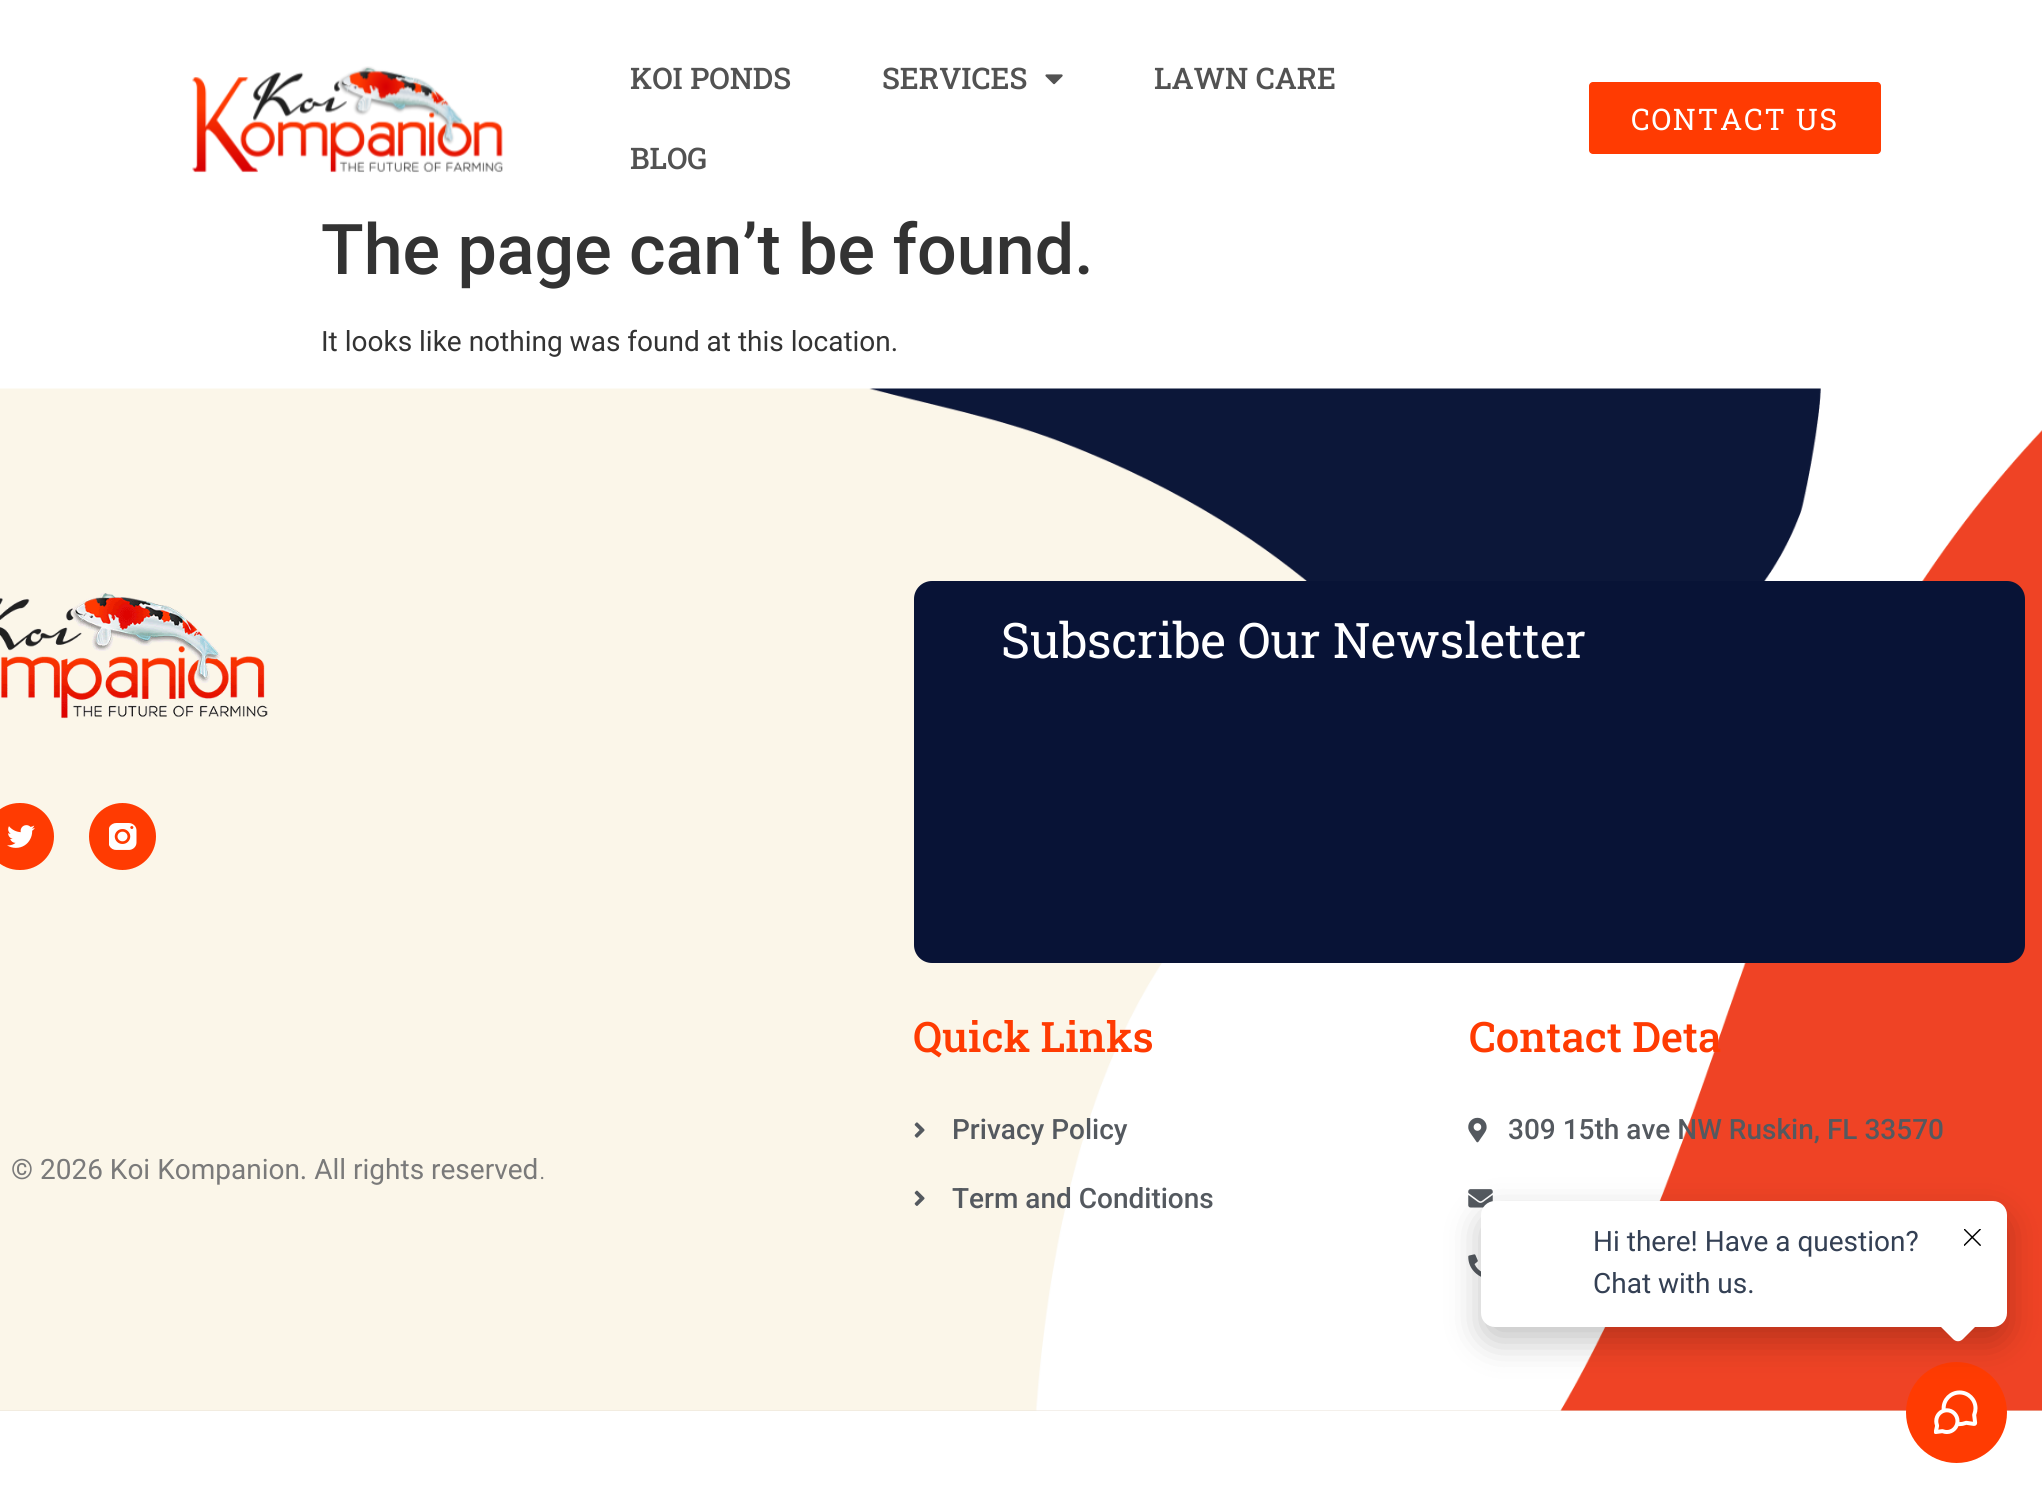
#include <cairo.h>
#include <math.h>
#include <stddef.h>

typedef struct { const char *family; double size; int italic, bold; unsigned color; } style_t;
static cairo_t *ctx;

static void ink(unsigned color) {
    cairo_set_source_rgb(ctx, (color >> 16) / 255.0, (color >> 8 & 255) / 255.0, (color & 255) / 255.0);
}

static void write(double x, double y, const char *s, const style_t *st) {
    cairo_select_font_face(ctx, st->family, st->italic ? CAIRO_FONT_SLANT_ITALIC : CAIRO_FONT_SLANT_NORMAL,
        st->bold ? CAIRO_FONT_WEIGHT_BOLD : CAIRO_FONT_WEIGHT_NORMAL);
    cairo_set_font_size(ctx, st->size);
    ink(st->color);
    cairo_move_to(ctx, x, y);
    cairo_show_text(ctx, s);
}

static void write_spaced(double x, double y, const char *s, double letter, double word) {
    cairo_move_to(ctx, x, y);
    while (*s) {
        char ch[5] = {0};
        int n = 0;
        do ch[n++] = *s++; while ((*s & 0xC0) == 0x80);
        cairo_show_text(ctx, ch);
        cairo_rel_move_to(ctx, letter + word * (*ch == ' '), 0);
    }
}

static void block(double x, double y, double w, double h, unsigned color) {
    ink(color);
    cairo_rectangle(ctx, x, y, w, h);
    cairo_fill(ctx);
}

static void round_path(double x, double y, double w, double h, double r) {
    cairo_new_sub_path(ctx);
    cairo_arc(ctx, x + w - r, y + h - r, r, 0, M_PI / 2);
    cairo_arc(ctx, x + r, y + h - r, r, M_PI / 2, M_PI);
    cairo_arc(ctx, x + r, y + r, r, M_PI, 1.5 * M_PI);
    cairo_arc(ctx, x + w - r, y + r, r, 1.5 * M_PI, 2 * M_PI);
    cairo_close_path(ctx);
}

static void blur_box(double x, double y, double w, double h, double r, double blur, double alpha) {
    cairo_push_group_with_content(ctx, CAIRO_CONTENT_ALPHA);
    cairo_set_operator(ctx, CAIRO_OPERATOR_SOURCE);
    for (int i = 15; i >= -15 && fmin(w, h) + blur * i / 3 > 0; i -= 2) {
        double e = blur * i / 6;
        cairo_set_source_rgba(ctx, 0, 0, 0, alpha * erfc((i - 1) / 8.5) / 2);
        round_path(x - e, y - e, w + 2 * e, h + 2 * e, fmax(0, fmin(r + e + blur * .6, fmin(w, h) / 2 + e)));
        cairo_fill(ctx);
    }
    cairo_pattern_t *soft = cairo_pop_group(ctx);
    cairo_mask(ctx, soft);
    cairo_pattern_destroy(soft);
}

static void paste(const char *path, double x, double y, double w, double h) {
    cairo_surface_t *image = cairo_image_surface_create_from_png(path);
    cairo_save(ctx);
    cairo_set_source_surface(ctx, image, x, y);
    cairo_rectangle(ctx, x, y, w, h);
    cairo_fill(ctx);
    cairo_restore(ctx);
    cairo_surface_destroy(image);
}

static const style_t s1 = {"Roboto Slab Medium", 29.75, 0, 0, 0x525252};
static const style_t s2 = {"Roboto Medium", 70, 0, 0, 0x333333};
static const style_t s3 = {"Roboto", 28, 0, 0, 0x333333};
static const style_t s4 = {"Roboto", 28, 0, 0, 0x7a7a7a};
static const style_t s5 = {"Roboto Light", 28, 0, 0, 0x7a7a7a};
static const style_t s6 = {"Roboto Slab", 49, 0, 0, 0xffffff};
static const style_t s7 = {"Roboto Slab Medium", 42, 0, 0, 0xff3b02};
static const style_t s8 = {"Roboto Medium", 28, 0, 0, 0x54595f};
static const style_t s9 = {"Roboto", 28, 0, 0, 0x344054};

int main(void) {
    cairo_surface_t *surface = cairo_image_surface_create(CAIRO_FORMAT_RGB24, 2042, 1498);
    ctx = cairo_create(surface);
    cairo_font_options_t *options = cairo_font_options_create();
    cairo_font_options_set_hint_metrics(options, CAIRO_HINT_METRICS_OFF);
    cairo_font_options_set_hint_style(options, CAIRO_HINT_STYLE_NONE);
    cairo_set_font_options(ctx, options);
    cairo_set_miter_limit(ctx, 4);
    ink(0xffffff);
    cairo_paint(ctx);
    paste("pic1.png", 192, 66, 311, 107);
    write(630, 89, "KOI PONDS", &s1);
    write(882, 89, "SERVICES", &s1);
    paste("pic2.png", 1045, 74, 18, 11);
    write(1154, 89, "LAWN CARE", &s1);
    write(630, 169, "BLOG", &s1);
    ink(0xff3b02);
    round_path(1589, 82, 292, 72, 4);
    cairo_fill(ctx);
    cairo_select_font_face(ctx, "Roboto Slab", CAIRO_FONT_SLANT_NORMAL, CAIRO_FONT_WEIGHT_NORMAL);
    ink(0xffffff);
    write_spaced(1631, 130, "CONTACT US", 1.75, 0);
    write(321, 274, "The page can’t be found.", &s2);
    write(321, 351, "It looks like nothing was found at this location.", &s3);
    block(0, 389, 2042, 1022, 0xeae2d7);
    paste("pic3.png", 0, 388, 2042, 1023);
    paste("pic4.png", 0, 592, 268, 127);
    ink(0xff3b02);
    round_path(-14, 803, 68, 67, 33.5);
    cairo_fill(ctx);
    paste("pic5.png", 7, 825, 28, 23);
    cairo_arc(ctx, 122.5, 836.5, 33.5, 0, 2 * M_PI);
    cairo_fill(ctx);
    paste("pic6.png", 109, 823, 28, 27);
    write(11, 1179, "© 2026 Koi Kompanion. All rights reserved", &s4);
    write(539, 1179, ".", &s5);
    ink(0x081336);
    round_path(914, 581, 1111, 382, 18);
    cairo_fill(ctx);
    write(1001, 658, "Subscribe Our Newsletter", &s6);
    write(913, 1052, "Quick Links", &s7);
    paste("pic7.png", 914, 1122, 11, 16);
    write(952, 1139, "Privacy Policy", &s8);
    paste("pic8.png", 914, 1190, 11, 16);
    write(952, 1208, "Term and Conditions", &s8);
    write(1469, 1052, "Contact Deta", &s7);
    paste("pic9.png", 1468, 1117, 19, 26);
    write(1508, 1139, "309 15th ave NW Ruskin, FL 33570", &s8);
    paste("pic10.png", 1468, 1189, 25, 19);
    paste("pic11.png", 1468, 1254, 13, 23);
    ink(0xff3b02);
    cairo_arc(ctx, 1956.5, 1412.5, 50.5, 0, 2 * M_PI);
    cairo_fill(ctx);
    paste("pic13.png", 1934, 1390, 44, 44);
    ink(0x000000);
    blur_box(1481, 1215, 526, 126, 14, 17.5, 0.24);
    ink(0xffffff);
    round_path(1481, 1201, 526, 126, 14);
    cairo_fill(ctx);
    write(1593, 1251, "Hi there! Have a question?", &s9);
    write(1593, 1293, "Chat with us.", &s9);
    ink(0xffffff);
    cairo_new_path(ctx);
    cairo_move_to(ctx, 1963, 1300);
    cairo_line_to(ctx, 1978, 1315);
    cairo_curve_to(ctx, 1981, 1317, 1981, 1322, 1978, 1324);
    cairo_line_to(ctx, 1963, 1339);
    cairo_curve_to(ctx, 1960, 1342, 1956, 1342, 1953, 1339);
    cairo_line_to(ctx, 1938, 1324);
    cairo_curve_to(ctx, 1936, 1322, 1936, 1317, 1938, 1315);
    cairo_line_to(ctx, 1953, 1300);
    cairo_curve_to(ctx, 1956, 1297, 1960, 1297, 1963, 1300);
    cairo_close_path(ctx);
    cairo_fill(ctx);
    paste("pic12.png", 1964, 1229, 17, 17);
    cairo_surface_write_to_png(surface, "screenshot.png");
    cairo_font_options_destroy(options);
    cairo_destroy(ctx);
    cairo_surface_destroy(surface);
    return 0;
}
